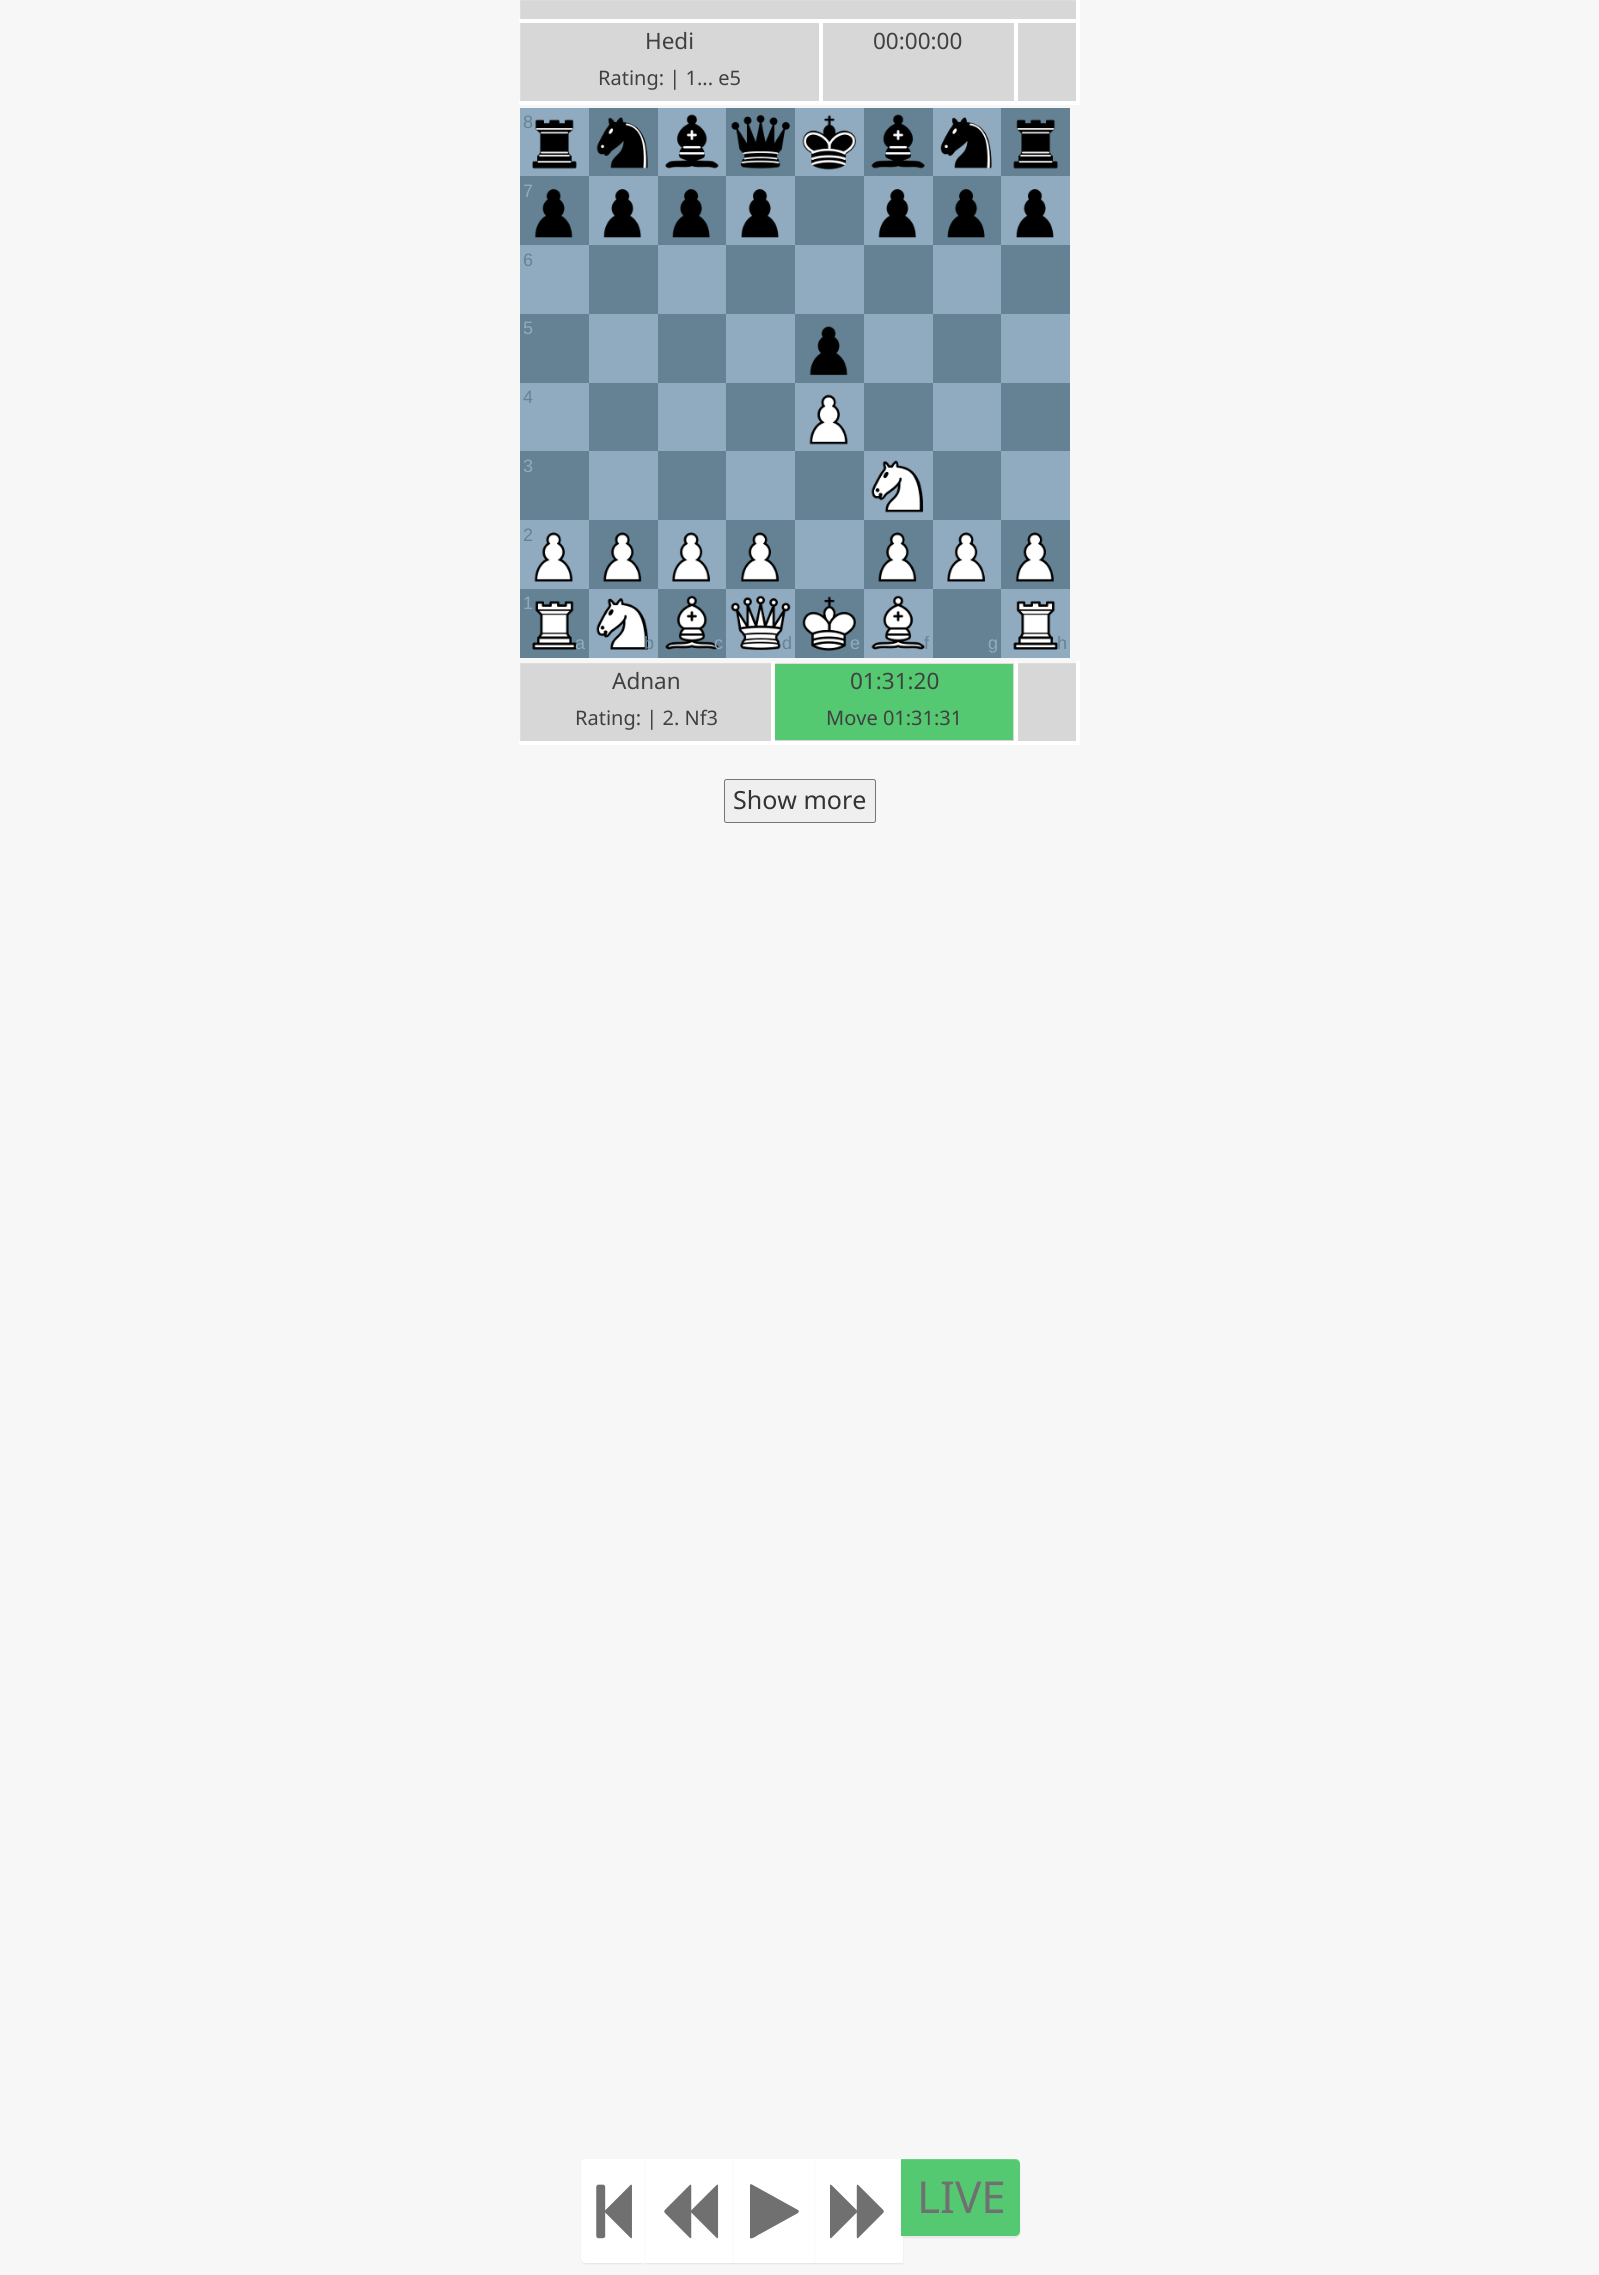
#include <cairo.h>
#include <math.h>
#include <stddef.h>

typedef struct { const char *family; double size; int italic, bold; unsigned color; } style_t;
static cairo_t *ctx;

static void ink(unsigned color) {
    cairo_set_source_rgb(ctx, (color >> 16) / 255.0, (color >> 8 & 255) / 255.0, (color & 255) / 255.0);
}

static void write(double x, double y, const char *s, const style_t *st) {
    cairo_select_font_face(ctx, st->family, st->italic ? CAIRO_FONT_SLANT_ITALIC : CAIRO_FONT_SLANT_NORMAL,
        st->bold ? CAIRO_FONT_WEIGHT_BOLD : CAIRO_FONT_WEIGHT_NORMAL);
    cairo_set_font_size(ctx, st->size);
    ink(st->color);
    cairo_move_to(ctx, x, y);
    cairo_show_text(ctx, s);
}

static void block(double x, double y, double w, double h, unsigned color) {
    ink(color);
    cairo_rectangle(ctx, x, y, w, h);
    cairo_fill(ctx);
}

static void round_path(double x, double y, double w, double h, double r) {
    cairo_new_sub_path(ctx);
    cairo_arc(ctx, x + w - r, y + h - r, r, 0, M_PI / 2);
    cairo_arc(ctx, x + r, y + h - r, r, M_PI / 2, M_PI);
    cairo_arc(ctx, x + r, y + r, r, M_PI, 1.5 * M_PI);
    cairo_arc(ctx, x + w - r, y + r, r, 1.5 * M_PI, 2 * M_PI);
    cairo_close_path(ctx);
}

static void blur_box(double x, double y, double w, double h, double r, double blur, double alpha) {
    cairo_push_group_with_content(ctx, CAIRO_CONTENT_ALPHA);
    cairo_set_operator(ctx, CAIRO_OPERATOR_SOURCE);
    for (int i = 15; i >= -15 && fmin(w, h) + blur * i / 3 > 0; i -= 2) {
        double e = blur * i / 6;
        cairo_set_source_rgba(ctx, 0, 0, 0, alpha * erfc((i - 1) / 8.5) / 2);
        round_path(x - e, y - e, w + 2 * e, h + 2 * e, fmax(0, fmin(r + e + blur * .6, fmin(w, h) / 2 + e)));
        cairo_fill(ctx);
    }
    cairo_pattern_t *soft = cairo_pop_group(ctx);
    cairo_mask(ctx, soft);
    cairo_pattern_destroy(soft);
}

static void paste(const char *path, double x, double y, double w, double h) {
    cairo_surface_t *image = cairo_image_surface_create_from_png(path);
    cairo_save(ctx);
    cairo_set_source_surface(ctx, image, x, y);
    cairo_rectangle(ctx, x, y, w, h);
    cairo_fill(ctx);
    cairo_restore(ctx);
    cairo_surface_destroy(image);
}

static const style_t s1 = {"Noto Sans", 22.5, 0, 0, 0x404040};
static const style_t s2 = {"Noto Sans", 20, 0, 0, 0x404040};
static const style_t s3 = {"Liberation Sans", 18, 0, 0, 0x658294};
static const style_t s4 = {"Liberation Sans", 18, 0, 0, 0x90abc0};
static const style_t s5 = {"Noto Sans", 25, 0, 0, 0x333333};
static const style_t s6 = {"Noto Sans", 44, 0, 0, 0x707070};

int main(void) {
    cairo_surface_t *surface = cairo_image_surface_create(CAIRO_FORMAT_RGB24, 1599, 2275);
    ctx = cairo_create(surface);
    cairo_font_options_t *options = cairo_font_options_create();
    cairo_font_options_set_hint_metrics(options, CAIRO_HINT_METRICS_OFF);
    cairo_font_options_set_hint_style(options, CAIRO_HINT_STYLE_NONE);
    cairo_set_font_options(ctx, options);
    cairo_set_miter_limit(ctx, 4);
    ink(0xf7f7f7);
    cairo_paint(ctx);
    block(521, 1, 555, 100, 0xd7d7d7);
    block(520, 0, 560, 1, 0xdddddd);
    block(520, 0, 1, 105, 0xdddddd);
    block(1076, 0, 4, 105, 0xffffff);
    block(1014, 101, 66, 4, 0xffffff);
    block(1014, 19, 4, 86, 0xffffff);
    block(819, 101, 199, 4, 0xffffff);
    block(819, 19, 4, 86, 0xffffff);
    block(519, 19, 561, 4, 0xffffff);
    block(519, 101, 304, 4, 0xffffff);
    write(645, 49, "Hedi", &s1);
    write(598, 85, "Rating: | 1... e5", &s2);
    write(873, 49, "00:00:00", &s1);
    block(520, 108, 69, 68, 0x90abc0);
    write(523, 128, "8", &s3);
    paste("pic1.png", 532, 119, 45, 50);
    block(589, 108, 69, 68, 0x658294);
    paste("pic2.png", 596, 117, 52, 52);
    block(658, 108, 68, 68, 0x90abc0);
    paste("pic3.png", 665, 114, 54, 55);
    block(726, 108, 69, 68, 0x658294);
    paste("pic4.png", 731, 114, 59, 55);
    block(795, 108, 69, 68, 0x90abc0);
    paste("pic5.png", 802, 115, 55, 55);
    block(864, 108, 69, 68, 0x658294);
    paste("pic6.png", 871, 114, 54, 55);
    block(933, 108, 68, 68, 0x90abc0);
    paste("pic7.png", 940, 117, 52, 52);
    block(1001, 108, 69, 68, 0x658294);
    paste("pic8.png", 1013, 119, 45, 50);
    block(520, 176, 69, 69, 0x658294);
    write(523, 197, "7", &s4);
    paste("pic9.png", 534, 189, 39, 49);
    block(589, 176, 69, 69, 0x90abc0);
    paste("pic10.png", 603, 189, 39, 49);
    block(658, 176, 68, 69, 0x658294);
    paste("pic11.png", 672, 189, 38, 49);
    block(726, 176, 69, 69, 0x90abc0);
    paste("pic12.png", 741, 189, 38, 49);
    block(795, 176, 69, 69, 0x658294);
    block(864, 176, 69, 69, 0x90abc0);
    paste("pic10.png", 878, 189, 39, 49);
    block(933, 176, 68, 69, 0x658294);
    paste("pic11.png", 947, 189, 38, 49);
    block(1001, 176, 69, 69, 0x90abc0);
    paste("pic12.png", 1016, 189, 38, 49);
    block(520, 245, 69, 69, 0x90abc0);
    write(523, 266, "6", &s3);
    block(589, 245, 69, 69, 0x658294);
    block(658, 245, 68, 69, 0x90abc0);
    block(726, 245, 69, 69, 0x658294);
    block(795, 245, 69, 69, 0x90abc0);
    block(864, 245, 69, 69, 0x658294);
    block(933, 245, 68, 69, 0x90abc0);
    block(1001, 245, 69, 69, 0x658294);
    block(520, 314, 69, 69, 0x658294);
    write(523, 334, "5", &s4);
    block(589, 314, 69, 69, 0x90abc0);
    block(658, 314, 68, 69, 0x658294);
    block(726, 314, 69, 69, 0x90abc0);
    block(795, 314, 69, 69, 0x658294);
    paste("pic13.png", 809, 326, 39, 50);
    block(864, 314, 69, 69, 0x90abc0);
    block(933, 314, 68, 69, 0x658294);
    block(1001, 314, 69, 69, 0x90abc0);
    block(520, 383, 69, 68, 0x90abc0);
    write(523, 403, "4", &s3);
    block(589, 383, 69, 68, 0x658294);
    block(658, 383, 68, 68, 0x90abc0);
    block(726, 383, 69, 68, 0x658294);
    block(795, 383, 69, 68, 0x90abc0);
    paste("pic14.png", 809, 394, 39, 51);
    block(864, 383, 69, 68, 0x658294);
    block(933, 383, 68, 68, 0x90abc0);
    block(1001, 383, 69, 68, 0x658294);
    block(520, 451, 69, 69, 0x658294);
    write(523, 472, "3", &s4);
    block(589, 451, 69, 69, 0x90abc0);
    block(658, 451, 68, 69, 0x658294);
    block(726, 451, 69, 69, 0x90abc0);
    block(795, 451, 69, 69, 0x658294);
    block(864, 451, 69, 69, 0x90abc0);
    paste("pic15.png", 871, 460, 53, 53);
    block(933, 451, 68, 69, 0x658294);
    block(1001, 451, 69, 69, 0x90abc0);
    block(520, 520, 69, 69, 0x90abc0);
    write(523, 541, "2", &s3);
    paste("pic16.png", 534, 532, 39, 50);
    block(589, 520, 69, 69, 0x658294);
    paste("pic17.png", 603, 532, 39, 50);
    block(658, 520, 68, 69, 0x90abc0);
    paste("pic18.png", 672, 532, 38, 50);
    block(726, 520, 69, 69, 0x658294);
    paste("pic19.png", 740, 532, 39, 50);
    block(795, 520, 69, 69, 0x90abc0);
    block(864, 520, 69, 69, 0x658294);
    paste("pic17.png", 878, 532, 39, 50);
    block(933, 520, 68, 69, 0x90abc0);
    paste("pic18.png", 947, 532, 38, 50);
    block(1001, 520, 69, 69, 0x658294);
    paste("pic19.png", 1015, 532, 39, 50);
    block(520, 589, 69, 69, 0x658294);
    write(523, 609, "1", &s4);
    paste("pic20.png", 532, 600, 45, 50);
    write(575, 649, "a", &s4);
    block(589, 589, 69, 69, 0x90abc0);
    paste("pic21.png", 596, 598, 53, 52);
    write(644, 649, "b", &s3);
    block(658, 589, 68, 69, 0x658294);
    paste("pic22.png", 665, 595, 54, 55);
    write(714, 649, "c", &s4);
    block(726, 589, 69, 69, 0x90abc0);
    paste("pic23.png", 730, 595, 61, 56);
    write(782, 649, "d", &s3);
    block(795, 589, 69, 69, 0x658294);
    paste("pic24.png", 802, 596, 55, 55);
    write(850, 649, "e", &s4);
    block(864, 589, 69, 69, 0x90abc0);
    paste("pic25.png", 871, 595, 54, 55);
    write(924, 649, "f", &s3);
    block(933, 589, 68, 69, 0x658294);
    write(988, 649, "g", &s4);
    block(1001, 589, 69, 69, 0x90abc0);
    paste("pic26.png", 1013, 600, 45, 50);
    write(1057, 649, "h", &s3);
    block(521, 664, 555, 77, 0xd7d7d7);
    block(520, 663, 560, 1, 0xdddddd);
    block(520, 663, 1, 82, 0xdddddd);
    block(1076, 661, 4, 84, 0xffffff);
    block(1014, 741, 66, 4, 0xffffff);
    block(1014, 661, 4, 84, 0xffffff);
    block(771, 741, 247, 4, 0xffffff);
    block(771, 661, 4, 84, 0xffffff);
    block(519, 741, 256, 4, 0xffffff);
    write(612, 689, "Adnan", &s1);
    write(575, 725, "Rating: | 2. Nf3", &s2);
    block(775, 664, 238, 76, 0x54c972);
    write(850, 689, "01:31:20", &s1);
    write(826, 725, "Move 01:31:31", &s2);
    ink(0xefefef);
    round_path(724.5, 779.5, 151, 43, 2);
    cairo_fill_preserve(ctx);
    ink(0x767676);
    cairo_set_line_width(ctx, 1);
    cairo_stroke(ctx);
    write(733, 809, "Show more", &s5);
    ink(0x000000);
    blur_box(581, 2160, 65, 104, 5, 0.5, 0.07);
    ink(0xffffff);
    cairo_new_path(ctx);
    cairo_move_to(ctx, 586, 2159);
    cairo_line_to(ctx, 646, 2159);
    cairo_line_to(ctx, 646, 2263);
    cairo_line_to(ctx, 586, 2263);
    cairo_curve_to(ctx, 583, 2263, 581, 2261, 581, 2258);
    cairo_line_to(ctx, 581, 2164);
    cairo_curve_to(ctx, 581, 2161, 583, 2159, 586, 2159);
    cairo_close_path(ctx);
    cairo_fill(ctx);
    paste("pic27.png", 596, 2184, 36, 55);
    ink(0x000000);
    blur_box(645, 2160, 89, 104, 0, 0.5, 0.07);
    block(645, 2159, 88, 104, 0xffffff);
    paste("pic28.png", 664, 2184, 55, 55);
    ink(0x000000);
    blur_box(733, 2160, 83, 104, 0, 0.5, 0.07);
    block(733, 2159, 82, 104, 0xffffff);
    ink(0x707070);
    cairo_new_path(ctx);
    cairo_move_to(ctx, 798, 2213);
    cairo_line_to(ctx, 760, 2234);
    cairo_curve_to(ctx, 759, 2234, 752, 2240, 750, 2238);
    cairo_line_to(ctx, 750, 2185);
    cairo_line_to(ctx, 751, 2184);
    cairo_line_to(ctx, 798, 2210);
    cairo_line_to(ctx, 799, 2211);
    cairo_close_path(ctx);
    cairo_fill(ctx);
    ink(0x000000);
    blur_box(815, 2160, 88, 104, 0, 0.5, 0.07);
    block(815, 2159, 88, 104, 0xffffff);
    paste("pic29.png", 830, 2184, 54, 55);
    ink(0x000000);
    blur_box(901, 2160, 119, 78, 5, 0.5, 0.07);
    ink(0x54c972);
    cairo_new_path(ctx);
    cairo_move_to(ctx, 901, 2159);
    cairo_line_to(ctx, 1015, 2159);
    cairo_curve_to(ctx, 1018, 2159, 1020, 2161, 1020, 2164);
    cairo_line_to(ctx, 1020, 2231);
    cairo_curve_to(ctx, 1020, 2234, 1018, 2236, 1015, 2236);
    cairo_line_to(ctx, 901, 2236);
    cairo_close_path(ctx);
    cairo_fill(ctx);
    cairo_set_source_rgba(ctx, 1, 1, 1, 0.15);
    cairo_new_path(ctx);
    cairo_move_to(ctx, 901, 2160);
    cairo_line_to(ctx, 1015, 2160);
    cairo_curve_to(ctx, 1018, 2160, 1020, 2162, 1020, 2165);
    cairo_line_to(ctx, 1020, 2164);
    cairo_curve_to(ctx, 1020, 2161, 1018, 2159, 1015, 2159);
    cairo_line_to(ctx, 901, 2159);
    cairo_close_path(ctx);
    cairo_fill(ctx);
    write(917, 2213, "LIVE", &s6);
    cairo_surface_write_to_png(surface, "screenshot.png");
    cairo_font_options_destroy(options);
    cairo_destroy(ctx);
    cairo_surface_destroy(surface);
    return 0;
}
